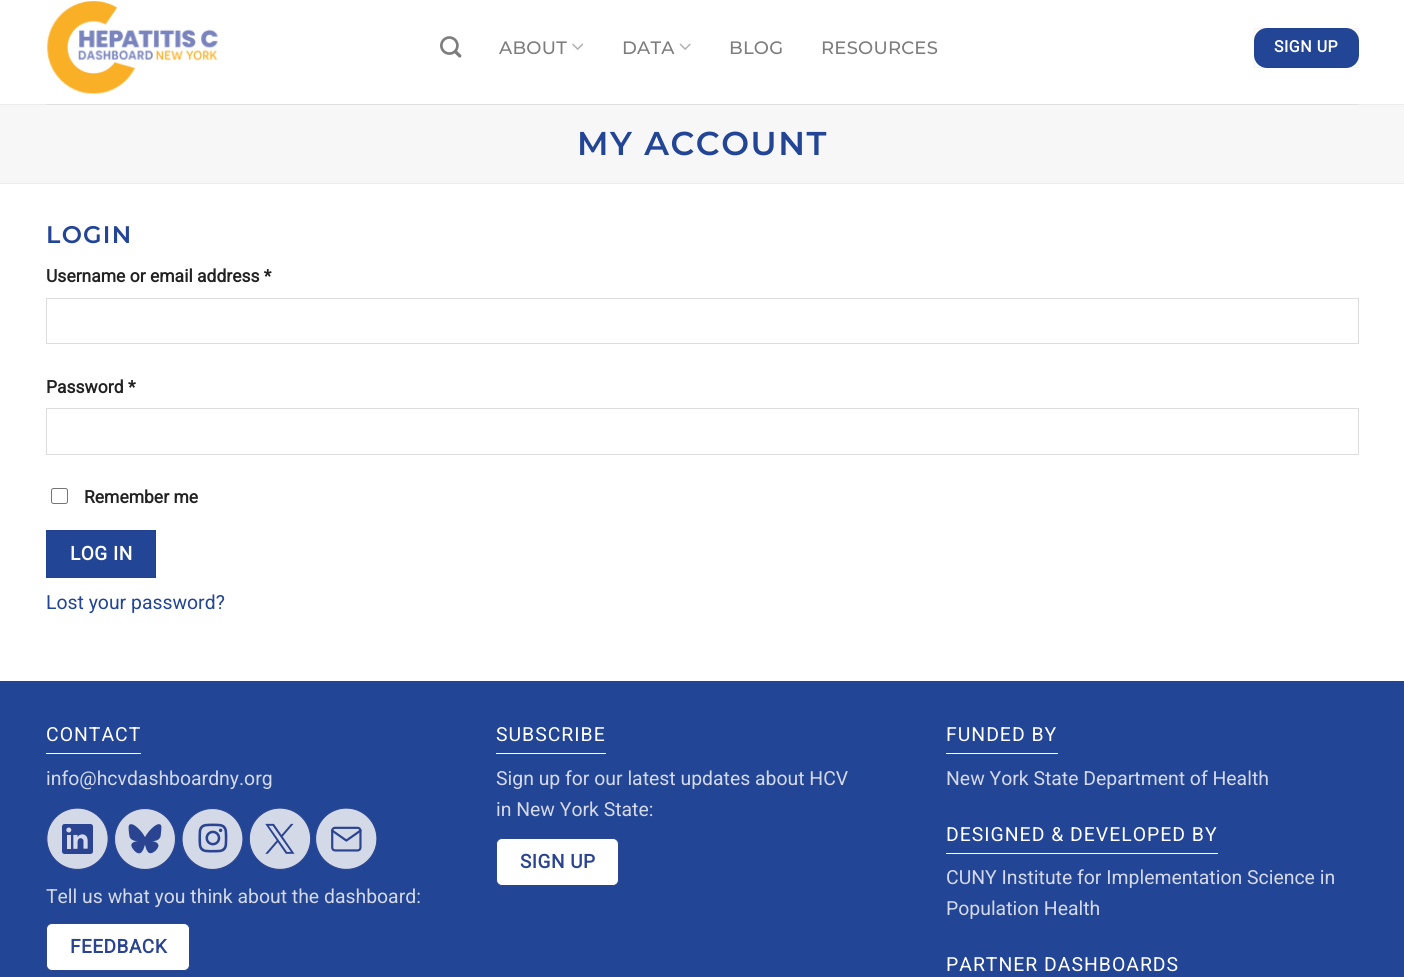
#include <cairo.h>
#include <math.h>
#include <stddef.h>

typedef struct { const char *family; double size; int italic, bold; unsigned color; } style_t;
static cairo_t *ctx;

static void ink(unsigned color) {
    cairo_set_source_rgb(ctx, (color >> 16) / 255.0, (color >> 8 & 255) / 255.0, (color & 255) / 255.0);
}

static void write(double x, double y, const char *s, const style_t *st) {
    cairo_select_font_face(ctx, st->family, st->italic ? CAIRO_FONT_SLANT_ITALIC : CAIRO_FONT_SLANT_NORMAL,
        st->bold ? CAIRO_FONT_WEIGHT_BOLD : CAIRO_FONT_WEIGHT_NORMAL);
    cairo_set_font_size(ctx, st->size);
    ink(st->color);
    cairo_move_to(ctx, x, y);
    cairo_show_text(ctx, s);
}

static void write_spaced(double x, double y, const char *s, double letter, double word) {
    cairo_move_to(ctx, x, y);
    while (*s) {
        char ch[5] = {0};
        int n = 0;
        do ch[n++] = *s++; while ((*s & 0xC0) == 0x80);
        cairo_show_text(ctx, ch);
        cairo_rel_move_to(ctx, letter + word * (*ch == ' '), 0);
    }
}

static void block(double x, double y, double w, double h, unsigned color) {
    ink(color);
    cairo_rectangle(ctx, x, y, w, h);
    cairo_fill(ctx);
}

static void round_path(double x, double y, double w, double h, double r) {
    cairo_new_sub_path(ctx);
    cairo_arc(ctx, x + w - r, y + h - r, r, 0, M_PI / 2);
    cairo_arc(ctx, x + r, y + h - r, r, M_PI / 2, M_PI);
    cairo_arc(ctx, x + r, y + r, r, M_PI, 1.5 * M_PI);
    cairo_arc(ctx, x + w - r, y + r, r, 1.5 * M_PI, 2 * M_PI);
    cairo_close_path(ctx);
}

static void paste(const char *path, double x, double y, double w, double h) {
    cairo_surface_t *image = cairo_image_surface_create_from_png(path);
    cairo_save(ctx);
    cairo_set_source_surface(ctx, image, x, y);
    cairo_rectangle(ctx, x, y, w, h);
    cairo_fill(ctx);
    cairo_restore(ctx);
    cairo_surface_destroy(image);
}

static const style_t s1 = {"Roboto", 17.5, 0, 1, 0x222222};
static const style_t s2 = {"Roboto", 19.4, 0, 0, 0x234596};
static const style_t s3 = {"Roboto", 19.4, 0, 0, 0xd4d9e8};

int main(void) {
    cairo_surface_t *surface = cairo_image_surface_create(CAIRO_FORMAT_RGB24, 1404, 977);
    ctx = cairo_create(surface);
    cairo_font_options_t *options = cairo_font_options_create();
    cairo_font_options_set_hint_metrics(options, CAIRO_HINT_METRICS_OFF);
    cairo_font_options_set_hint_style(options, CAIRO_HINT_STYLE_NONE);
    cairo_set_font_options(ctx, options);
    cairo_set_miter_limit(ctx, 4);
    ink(0xffffff);
    cairo_paint(ctx);
    paste("pic1.png", 47, 1, 171, 93);
    paste("pic2.png", 440, 36, 22, 22);
    cairo_select_font_face(ctx, "Montserrat Medium", CAIRO_FONT_SLANT_NORMAL, CAIRO_FONT_WEIGHT_NORMAL);
    cairo_set_font_size(ctx, 18);
    ink(0x7d7d7d);
    write_spaced(499, 54, "ABOUT", 0.25, 0);
    paste("pic3.png", 572, 43, 12, 7);
    write_spaced(622, 54, "DATA", 0.25, 0);
    paste("pic4.png", 679, 43, 12, 7);
    write_spaced(729, 54, "BLOG", 0.25, 0);
    write_spaced(821, 54, "RESOURCES", 0.25, 0);
    ink(0x234596);
    round_path(1254, 28, 105, 40, 13);
    cairo_fill(ctx);
    cairo_rectangle(ctx, 1254.5, 28.5, 104, 39);
    cairo_set_source_rgba(ctx, 0, 0, 0, 0.05);
    cairo_set_line_width(ctx, 1);
    cairo_stroke(ctx);
    cairo_select_font_face(ctx, "Roboto", CAIRO_FONT_SLANT_NORMAL, CAIRO_FONT_WEIGHT_BOLD);
    cairo_set_font_size(ctx, 16);
    ink(0xffffff);
    write_spaced(1274, 52, "SIGN UP", 0.5, 0);
    block(0, 104, 1404, 1, 0xececec);
    block(46, 104, 1313, 1, 0xe0e0e0);
    block(0, 105, 1404, 78, 0xf7f7f7);
    block(0, 183, 1404, 1, 0xececec);
    cairo_select_font_face(ctx, "Montserrat SemiBold", CAIRO_FONT_SLANT_NORMAL, CAIRO_FONT_WEIGHT_NORMAL);
    cairo_set_font_size(ctx, 33);
    ink(0x234596);
    write_spaced(577, 155, "MY ACCOUNT", 1.6, 0);
    cairo_set_font_size(ctx, 24);
    write_spaced(46, 243, "LOGIN", 1.25, 0);
    write(46, 282, "Username or email address *", &s1);
    cairo_rectangle(ctx, 46.5, 298.5, 1312, 45);
    ink(0xdddddd);
    cairo_stroke(ctx);
    write(46, 393, "Password *", &s1);
    cairo_rectangle(ctx, 46.5, 408.5, 1312, 46);
    ink(0xdddddd);
    cairo_stroke(ctx);
    round_path(51.5, 488.5, 16, 15, 2);
    ink(0x767676);
    cairo_stroke(ctx);
    write(84, 503, "Remember me", &s1);
    ink(0x234596);
    cairo_rectangle(ctx, 46.5, 530.5, 109, 47);
    cairo_fill_preserve(ctx);
    ink(0x21428f);
    cairo_stroke(ctx);
    cairo_set_font_size(ctx, 19);
    ink(0xffffff);
    write_spaced(70, 560, "LOG IN", 0.5, 0);
    write(46, 609, "Lost your password?", &s2);
    block(0, 682, 1404, 295, 0x234596);
    block(0, 681, 1404, 1, 0x21428f);
    ink(0xffffff);
    write_spaced(46, 741, "CONTACT", 1, 0);
    block(46, 753, 95, 1, 0xffffff);
    write(46, 785, "info@hcvdashboardny.org", &s3);
    paste("pic5.png", 46, 808, 63, 62);
    paste("pic6.png", 114, 808, 62, 62);
    paste("pic7.png", 182, 808, 61, 62);
    paste("pic8.png", 249, 808, 62, 62);
    paste("pic9.png", 315, 808, 62, 62);
    write(46, 903, "Tell us what you think about the dashboard:", &s3);
    ink(0xffffff);
    round_path(46.5, 923.5, 143, 47, 5.5);
    cairo_fill_preserve(ctx);
    ink(0x2a4491);
    cairo_stroke(ctx);
    cairo_select_font_face(ctx, "Roboto", CAIRO_FONT_SLANT_NORMAL, CAIRO_FONT_WEIGHT_BOLD);
    cairo_set_font_size(ctx, 19);
    write_spaced(70, 953, "FEEDBACK", 0.5, 0);
    cairo_select_font_face(ctx, "Roboto", CAIRO_FONT_SLANT_NORMAL, CAIRO_FONT_WEIGHT_NORMAL);
    cairo_set_font_size(ctx, 19.4);
    ink(0xffffff);
    write_spaced(496, 741, "SUBSCRIBE", 1, 0);
    block(496, 753, 110, 1, 0xffffff);
    write(496, 785, "Sign up for our latest updates about HCV", &s3);
    write(496, 816, "in New York State:", &s3);
    ink(0xffffff);
    round_path(496.5, 838.5, 122, 47, 5.5);
    cairo_fill_preserve(ctx);
    ink(0x2a4491);
    cairo_stroke(ctx);
    cairo_select_font_face(ctx, "Roboto", CAIRO_FONT_SLANT_NORMAL, CAIRO_FONT_WEIGHT_BOLD);
    cairo_set_font_size(ctx, 19);
    write_spaced(520, 868, "SIGN UP", 0.5, 0);
    cairo_select_font_face(ctx, "Roboto", CAIRO_FONT_SLANT_NORMAL, CAIRO_FONT_WEIGHT_NORMAL);
    cairo_set_font_size(ctx, 19.4);
    ink(0xffffff);
    write_spaced(946, 741, "FUNDED BY", 1, 0);
    block(946, 753, 112, 1, 0xffffff);
    write(946, 785, "New York State Department of Health", &s3);
    ink(0xffffff);
    write_spaced(946, 841, "DESIGNED & DEVELOPED BY", 1, 0);
    block(946, 853, 272, 1, 0xffffff);
    write(946, 884, "CUNY Institute for Implementation Science in", &s3);
    write(946, 915, "Population Health", &s3);
    ink(0xffffff);
    write_spaced(946, 971, "PARTNER DASHBOARDS", 1, 0);
    cairo_surface_write_to_png(surface, "screenshot.png");
    cairo_font_options_destroy(options);
    cairo_destroy(ctx);
    cairo_surface_destroy(surface);
    return 0;
}
